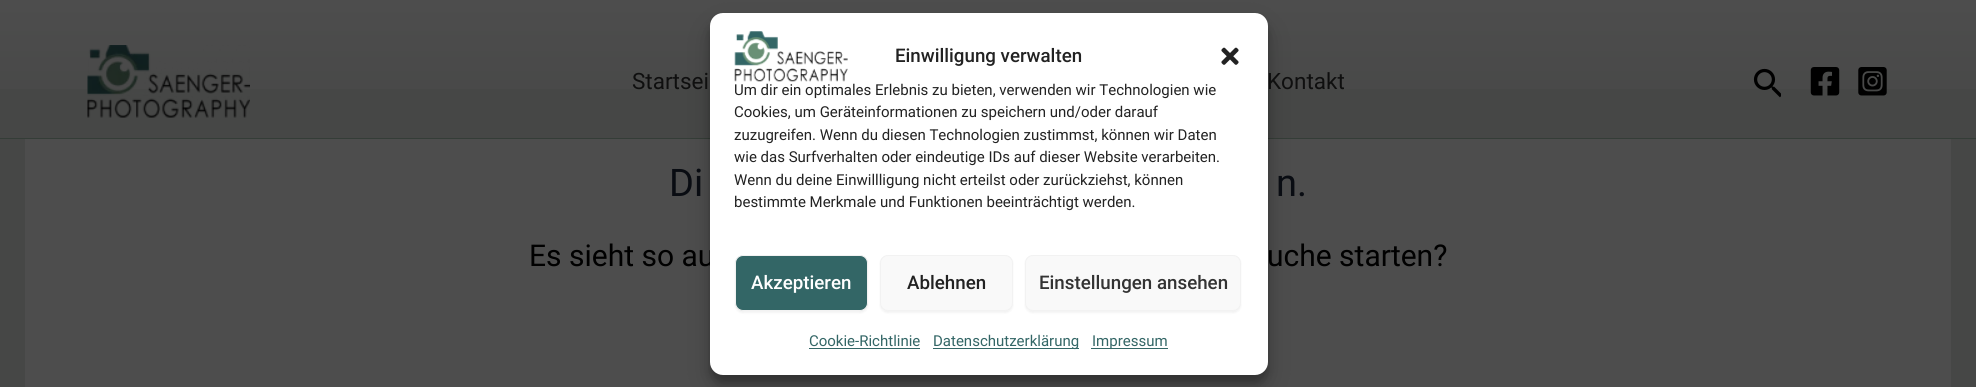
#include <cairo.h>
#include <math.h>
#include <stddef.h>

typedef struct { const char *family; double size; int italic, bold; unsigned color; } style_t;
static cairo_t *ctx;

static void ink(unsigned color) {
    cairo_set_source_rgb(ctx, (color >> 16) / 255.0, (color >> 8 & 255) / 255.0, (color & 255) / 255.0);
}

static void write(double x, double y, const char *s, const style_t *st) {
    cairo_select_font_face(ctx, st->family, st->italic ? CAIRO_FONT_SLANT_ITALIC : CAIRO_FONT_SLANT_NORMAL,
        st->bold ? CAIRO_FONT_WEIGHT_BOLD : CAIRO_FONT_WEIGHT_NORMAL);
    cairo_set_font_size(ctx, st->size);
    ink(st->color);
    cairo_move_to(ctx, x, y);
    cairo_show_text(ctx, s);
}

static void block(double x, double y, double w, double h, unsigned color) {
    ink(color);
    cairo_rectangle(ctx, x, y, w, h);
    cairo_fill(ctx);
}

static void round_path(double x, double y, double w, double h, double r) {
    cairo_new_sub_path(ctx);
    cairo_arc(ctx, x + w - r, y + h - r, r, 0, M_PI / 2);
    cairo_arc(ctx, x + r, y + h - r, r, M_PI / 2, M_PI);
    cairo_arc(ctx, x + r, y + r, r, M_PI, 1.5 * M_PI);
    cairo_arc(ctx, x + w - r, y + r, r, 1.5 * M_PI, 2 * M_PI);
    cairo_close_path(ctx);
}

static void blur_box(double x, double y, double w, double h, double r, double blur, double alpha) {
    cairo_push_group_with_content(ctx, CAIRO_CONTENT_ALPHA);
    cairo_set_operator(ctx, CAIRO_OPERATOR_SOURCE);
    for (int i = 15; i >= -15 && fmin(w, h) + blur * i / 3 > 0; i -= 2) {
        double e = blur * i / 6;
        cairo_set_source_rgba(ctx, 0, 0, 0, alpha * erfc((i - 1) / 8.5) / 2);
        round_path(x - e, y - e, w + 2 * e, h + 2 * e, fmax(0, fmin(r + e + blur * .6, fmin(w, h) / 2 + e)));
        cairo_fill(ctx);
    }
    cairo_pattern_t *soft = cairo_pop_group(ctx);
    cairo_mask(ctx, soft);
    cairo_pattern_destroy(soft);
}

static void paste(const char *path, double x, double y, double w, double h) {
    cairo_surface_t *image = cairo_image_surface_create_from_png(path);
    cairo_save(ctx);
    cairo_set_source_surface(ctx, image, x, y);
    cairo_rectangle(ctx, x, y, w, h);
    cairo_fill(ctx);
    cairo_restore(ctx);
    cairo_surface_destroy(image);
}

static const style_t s1 = {"Roboto", 30, 0, 0, 0x000000};
static const style_t s2 = {"Roboto Medium", 18.75, 0, 0, 0x222222};
static const style_t s3 = {"Roboto", 15, 0, 0, 0x222222};
static const style_t s4 = {"Roboto Medium", 18.75, 0, 0, 0xffffff};
static const style_t s5 = {"Roboto Medium", 18.75, 0, 0, 0x333333};
static const style_t s6 = {"Roboto", 15, 0, 0, 0x336666};
static const style_t s7 = {"Roboto", 22.5, 0, 0, 0x0f0f0f};
static const style_t s8 = {"Roboto", 38, 0, 0, 0x090c12};

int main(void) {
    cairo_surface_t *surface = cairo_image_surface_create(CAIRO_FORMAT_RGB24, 1976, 387);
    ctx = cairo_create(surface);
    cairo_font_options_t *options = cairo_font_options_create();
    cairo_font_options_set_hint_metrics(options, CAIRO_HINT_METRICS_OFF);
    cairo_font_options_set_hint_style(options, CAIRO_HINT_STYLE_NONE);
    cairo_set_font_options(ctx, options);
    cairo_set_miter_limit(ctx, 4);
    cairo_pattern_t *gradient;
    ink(0x464746);
    cairo_paint(ctx);
    gradient = cairo_pattern_create_linear(988, 138, 988, 0);
    cairo_pattern_add_color_stop_rgba(gradient, 0, 0.275, 0.278, 0.275, 1);
    cairo_pattern_add_color_stop_rgba(gradient, 0.99, 0.302, 0.302, 0.302, 1);
    cairo_set_source(ctx, gradient);
    cairo_pattern_destroy(gradient);
    cairo_rectangle(ctx, 0, 0, 1976, 89);
    cairo_fill(ctx);
    block(0, 138, 1976, 1, 0x343d37);
    block(25, 139, 1926, 248, 0x4d4d4d);
    ink(0x000000);
    blur_box(710, 20, 558, 363, 13, 4, 0.23);
    blur_box(710, 25, 558, 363, 13, 12.5, 0.19);
    write(529, 266, "Es sieht so au", &s1);
    ink(0xffffff);
    round_path(710, 13, 558, 362, 13);
    cairo_fill(ctx);
    paste("pic1.png", 734, 31, 114, 51);
    write(895, 62, "Einwilligung verwalten", &s2);
    paste("pic2.png", 1221, 47, 18, 18);
    write(734, 95, "Um dir ein optimales Erlebnis zu bieten, verwenden wir Technologien wie", &s3);
    write(734, 117, "Cookies, um Geräteinformationen zu speichern und/oder darauf", &s3);
    write(734, 140, "zuzugreifen. Wenn du diesen Technologien zustimmst, können wir Daten", &s3);
    write(734, 162, "wie das Surfverhalten oder eindeutige IDs auf dieser Website verarbeiten.", &s3);
    write(734, 185, "Wenn du deine Einwillligung nicht erteilst oder zurückziehst, können", &s3);
    write(734, 207, "bestimmte Merkmale und Funktionen beeinträchtigt werden.", &s3);
    ink(0x000000);
    blur_box(735, 256, 133, 57, 8, 1, 0.05);
    ink(0x336666);
    round_path(735.5, 255.5, 132, 55, 7.5);
    cairo_fill_preserve(ctx);
    ink(0xf2f2f2);
    cairo_set_line_width(ctx, 1);
    cairo_stroke(ctx);
    write(751, 289, "Akzeptieren", &s4);
    ink(0x000000);
    blur_box(880, 256, 133, 57, 8, 1, 0.05);
    ink(0xf9f9f9);
    round_path(880.5, 255.5, 132, 55, 7.5);
    cairo_fill_preserve(ctx);
    ink(0xf2f2f2);
    cairo_stroke(ctx);
    write(907, 289, "Ablehnen", &s2);
    ink(0x000000);
    blur_box(1025, 256, 216, 57, 8, 1, 0.05);
    ink(0xf9f9f9);
    round_path(1025.5, 255.5, 215, 55, 7.5);
    cairo_fill_preserve(ctx);
    ink(0xf2f2f2);
    cairo_stroke(ctx);
    write(1039, 289, "Einstellungen ansehen", &s5);
    write(809, 346, "Cookie-Richtlinie", &s6);
    block(809, 348, 111, 1, 0x336666);
    block(933, 348, 146, 1, 0x336666);
    write(933, 346, "Datenschutzerklärung", &s6);
    block(1091, 348, 77, 1, 0x336666);
    write(1092, 346, "Impressum", &s6);
    paste("pic3.png", 87, 45, 163, 73);
    write(632, 89, "Startsei", &s7);
    write(1267, 89, "Kontakt", &s7);
    paste("pic4.png", 1753, 68, 28, 30);
    paste("pic5.png", 1810, 67, 30, 29);
    paste("pic6.png", 1858, 67, 29, 29);
    write(669, 196, "Di", &s8);
    write(1276, 196, "n.", &s8);
    write(1267, 266, "uche starten?", &s1);
    cairo_surface_write_to_png(surface, "screenshot.png");
    cairo_font_options_destroy(options);
    cairo_destroy(ctx);
    cairo_surface_destroy(surface);
    return 0;
}
